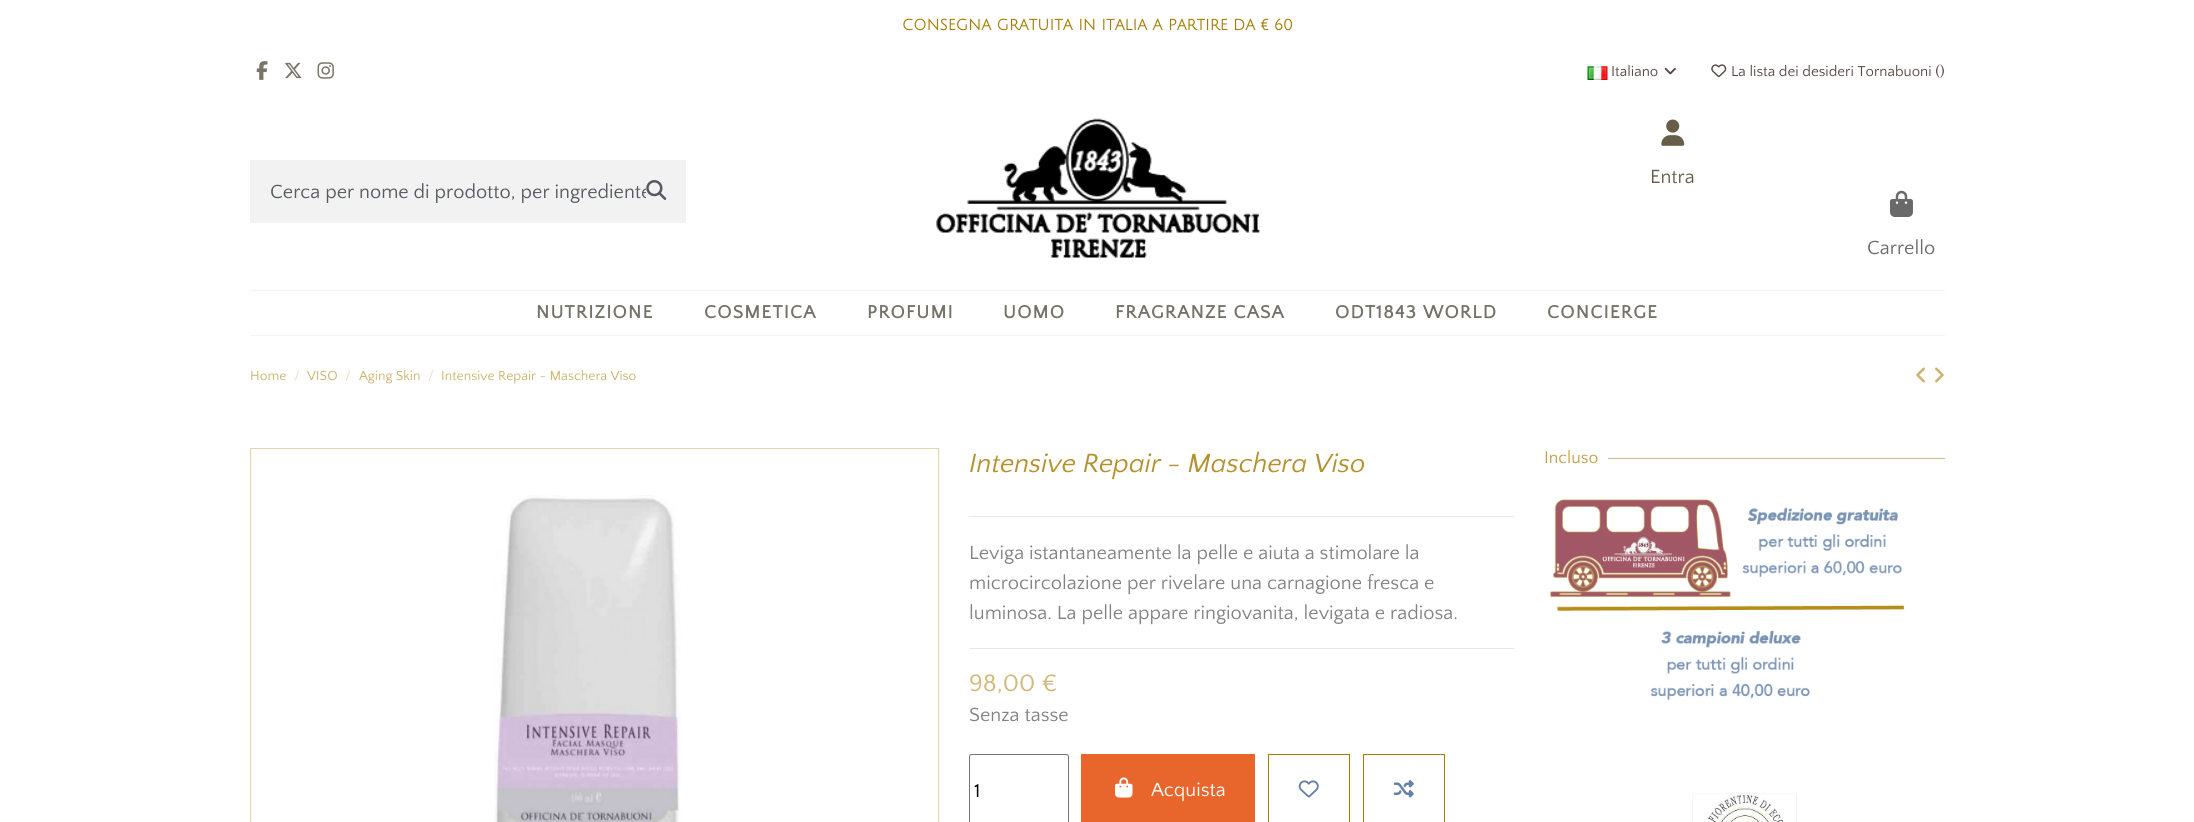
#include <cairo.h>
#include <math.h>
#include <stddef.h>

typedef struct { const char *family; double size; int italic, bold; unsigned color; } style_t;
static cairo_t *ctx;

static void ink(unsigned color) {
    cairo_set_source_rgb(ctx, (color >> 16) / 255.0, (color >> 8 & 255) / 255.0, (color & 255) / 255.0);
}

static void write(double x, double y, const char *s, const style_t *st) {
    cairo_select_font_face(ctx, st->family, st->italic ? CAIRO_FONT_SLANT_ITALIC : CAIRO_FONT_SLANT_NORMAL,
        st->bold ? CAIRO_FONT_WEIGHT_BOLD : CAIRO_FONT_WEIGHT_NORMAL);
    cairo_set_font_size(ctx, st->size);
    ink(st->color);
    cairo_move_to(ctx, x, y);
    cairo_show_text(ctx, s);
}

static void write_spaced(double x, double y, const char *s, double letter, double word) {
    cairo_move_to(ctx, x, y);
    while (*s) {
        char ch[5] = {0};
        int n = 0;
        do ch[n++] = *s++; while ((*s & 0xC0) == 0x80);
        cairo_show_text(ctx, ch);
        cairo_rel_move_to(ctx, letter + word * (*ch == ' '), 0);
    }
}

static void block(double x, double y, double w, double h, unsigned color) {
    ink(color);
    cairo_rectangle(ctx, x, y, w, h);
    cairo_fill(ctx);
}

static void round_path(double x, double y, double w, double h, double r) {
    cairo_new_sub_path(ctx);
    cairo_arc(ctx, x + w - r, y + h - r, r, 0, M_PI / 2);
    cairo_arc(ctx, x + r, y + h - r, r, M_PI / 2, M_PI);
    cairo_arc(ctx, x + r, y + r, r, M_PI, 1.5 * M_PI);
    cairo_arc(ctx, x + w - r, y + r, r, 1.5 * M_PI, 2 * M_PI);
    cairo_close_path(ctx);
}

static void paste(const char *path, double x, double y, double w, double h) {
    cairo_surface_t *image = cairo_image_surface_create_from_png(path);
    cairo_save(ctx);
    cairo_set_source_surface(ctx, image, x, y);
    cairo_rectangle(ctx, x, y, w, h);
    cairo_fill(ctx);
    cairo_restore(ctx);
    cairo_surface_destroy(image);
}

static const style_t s1 = {"Julius Sans One", 15, 0, 1, 0xa57900};
static const style_t s2 = {"Quattrocento Sans", 15, 0, 0, 0x594747};
static const style_t s3 = {"Quattrocento Sans", 20, 0, 0, 0x575961};
static const style_t s4 = {"Quattrocento Sans", 20, 0, 0, 0x665e48};
static const style_t s5 = {"Quattrocento Sans", 20, 0, 0, 0x696969};
static const style_t s6 = {"Quattrocento Sans", 13.75, 0, 0, 0xcbb26d};
static const style_t s7 = {"Quattrocento Sans", 13.75, 0, 0, 0xe9dfc3};
static const style_t s8 = {"Quattrocento Sans", 27.5, 1, 0, 0xb5912e};
static const style_t s9 = {"Quattrocento Sans", 20, 0, 0, 0x848181};
static const style_t s10 = {"Quattrocento Sans", 25, 0, 0, 0xd0b97a};
static const style_t s11 = {"Quattrocento Sans", 20, 0, 0, 0x000000};
static const style_t s12 = {"Quattrocento Sans", 20, 0, 0, 0xffffff};
static const style_t s13 = {"Quattrocento Sans", 17.5, 0, 0, 0xbfa04a};

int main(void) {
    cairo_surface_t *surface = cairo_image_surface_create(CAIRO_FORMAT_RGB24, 2194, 822);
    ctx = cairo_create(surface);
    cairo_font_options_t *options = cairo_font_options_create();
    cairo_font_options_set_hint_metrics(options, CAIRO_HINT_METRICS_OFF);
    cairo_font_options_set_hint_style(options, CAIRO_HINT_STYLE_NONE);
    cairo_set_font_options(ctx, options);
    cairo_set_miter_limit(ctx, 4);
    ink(0xffffff);
    cairo_paint(ctx);
    write(902, 30, "CONSEGNA GRATUITA IN ITALIA A PARTIRE DA € 60", &s1);
    paste("pic1.png", 256, 61, 12, 19);
    paste("pic2.png", 284, 62, 18, 17);
    paste("pic3.png", 317, 62, 17, 17);
    paste("pic4.png", 1587, 66, 21, 14);
    write(1611, 76, "Italiano", &s2);
    paste("pic5.png", 1664, 67, 12, 8);
    paste("pic6.png", 1711, 64, 16, 14);
    write(1731, 76, "La lista dei desideri Tornabuoni ()", &s2);
    block(250, 160, 436, 63, 0xf2f2f2);
    cairo_save(ctx);
    cairo_rectangle(ctx, 270, 180, 376, 23);
    cairo_clip(ctx);
    write(270, 198, "Cerca per nome di prodotto, per ingrediente", &s3);
    cairo_restore(ctx);
    paste("pic7.png", 646, 180, 21, 20);
    paste("pic8.png", 936, 118, 325, 140);
    paste("pic9.png", 1661, 119, 24, 27);
    write(1650, 183, "Entra", &s4);
    paste("pic10.png", 1890, 190, 23, 27);
    write(1867, 254, "Carrello", &s5);
    block(250, 290, 1695, 1, 0xf9f1f1);
    block(250, 335, 1695, 1, 0xf9f1f1);
    cairo_select_font_face(ctx, "Quattrocento Sans", CAIRO_FONT_SLANT_NORMAL, CAIRO_FONT_WEIGHT_BOLD);
    cairo_set_font_size(ctx, 18.75);
    ink(0x747167);
    write_spaced(536, 318, "NUTRIZIONE", 1.25, 0);
    write_spaced(704, 318, "COSMETICA", 1.25, 0);
    write_spaced(867, 318, "PROFUMI", 1.25, 0);
    write_spaced(1003, 318, "UOMO", 1.25, 0);
    write_spaced(1115, 318, "FRAGRANZE CASA", 1.25, 0);
    write_spaced(1335, 318, "ODT1843 WORLD", 1.25, 0);
    write_spaced(1547, 318, "CONCIERGE", 1.25, 0);
    write(250, 380, "Home", &s6);
    write(294, 380, "/", &s7);
    write(307, 380, "VISO", &s6);
    write(345, 380, "/", &s7);
    write(359, 380, "Aging Skin", &s6);
    write(428, 380, "/", &s7);
    write(441, 380, "Intensive Repair - Maschera Viso", &s6);
    paste("pic11.png", 1916, 367, 9, 16);
    paste("pic12.png", 1935, 367, 9, 16);
    cairo_rectangle(ctx, 250.5, 448.5, 688, 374);
    ink(0xe2d4ad);
    cairo_set_line_width(ctx, 1);
    cairo_stroke(ctx);
    paste("pic13.png", 494, 495, 187, 327);
    block(969, 516, 545, 1, 0xe7e7e7);
    write(969, 472, "Intensive Repair - Maschera Viso", &s8);
    write(969, 559, "Leviga istantaneamente la pelle e aiuta a stimolare la", &s9);
    write(969, 589, "microcircolazione per rivelare una carnagione fresca e", &s9);
    write(969, 619, "luminosa. La pelle appare ringiovanita, levigata e radiosa.", &s9);
    block(969, 648, 545, 1, 0xe7e7e7);
    write(969, 691, "98,00 €", &s10);
    write(969, 721, "Senza tasse", &s9);
    round_path(969.5, 754.5, 99, 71, 2);
    ink(0x767676);
    cairo_stroke(ctx);
    write(974, 797, "1", &s11);
    block(1081, 754, 174, 68, 0xe8662b);
    paste("pic14.png", 1115, 777, 18, 21);
    write(1151, 796, "Acquista", &s12);
    cairo_rectangle(ctx, 1268.5, 754.5, 81, 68);
    ink(0xa57900);
    cairo_stroke(ctx);
    paste("pic15.png", 1298, 780, 21, 18);
    cairo_rectangle(ctx, 1363.5, 754.5, 81, 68);
    cairo_stroke(ctx);
    paste("pic16.png", 1393, 780, 21, 18);
    write(1544, 463, "Incluso", &s13);
    block(1608, 458, 337, 1, 0xd2bc80);
    paste("pic17.png", 1550, 499, 355, 201);
    paste("pic18.png", 1692, 793, 105, 29);
    cairo_surface_write_to_png(surface, "screenshot.png");
    cairo_font_options_destroy(options);
    cairo_destroy(ctx);
    cairo_surface_destroy(surface);
    return 0;
}
